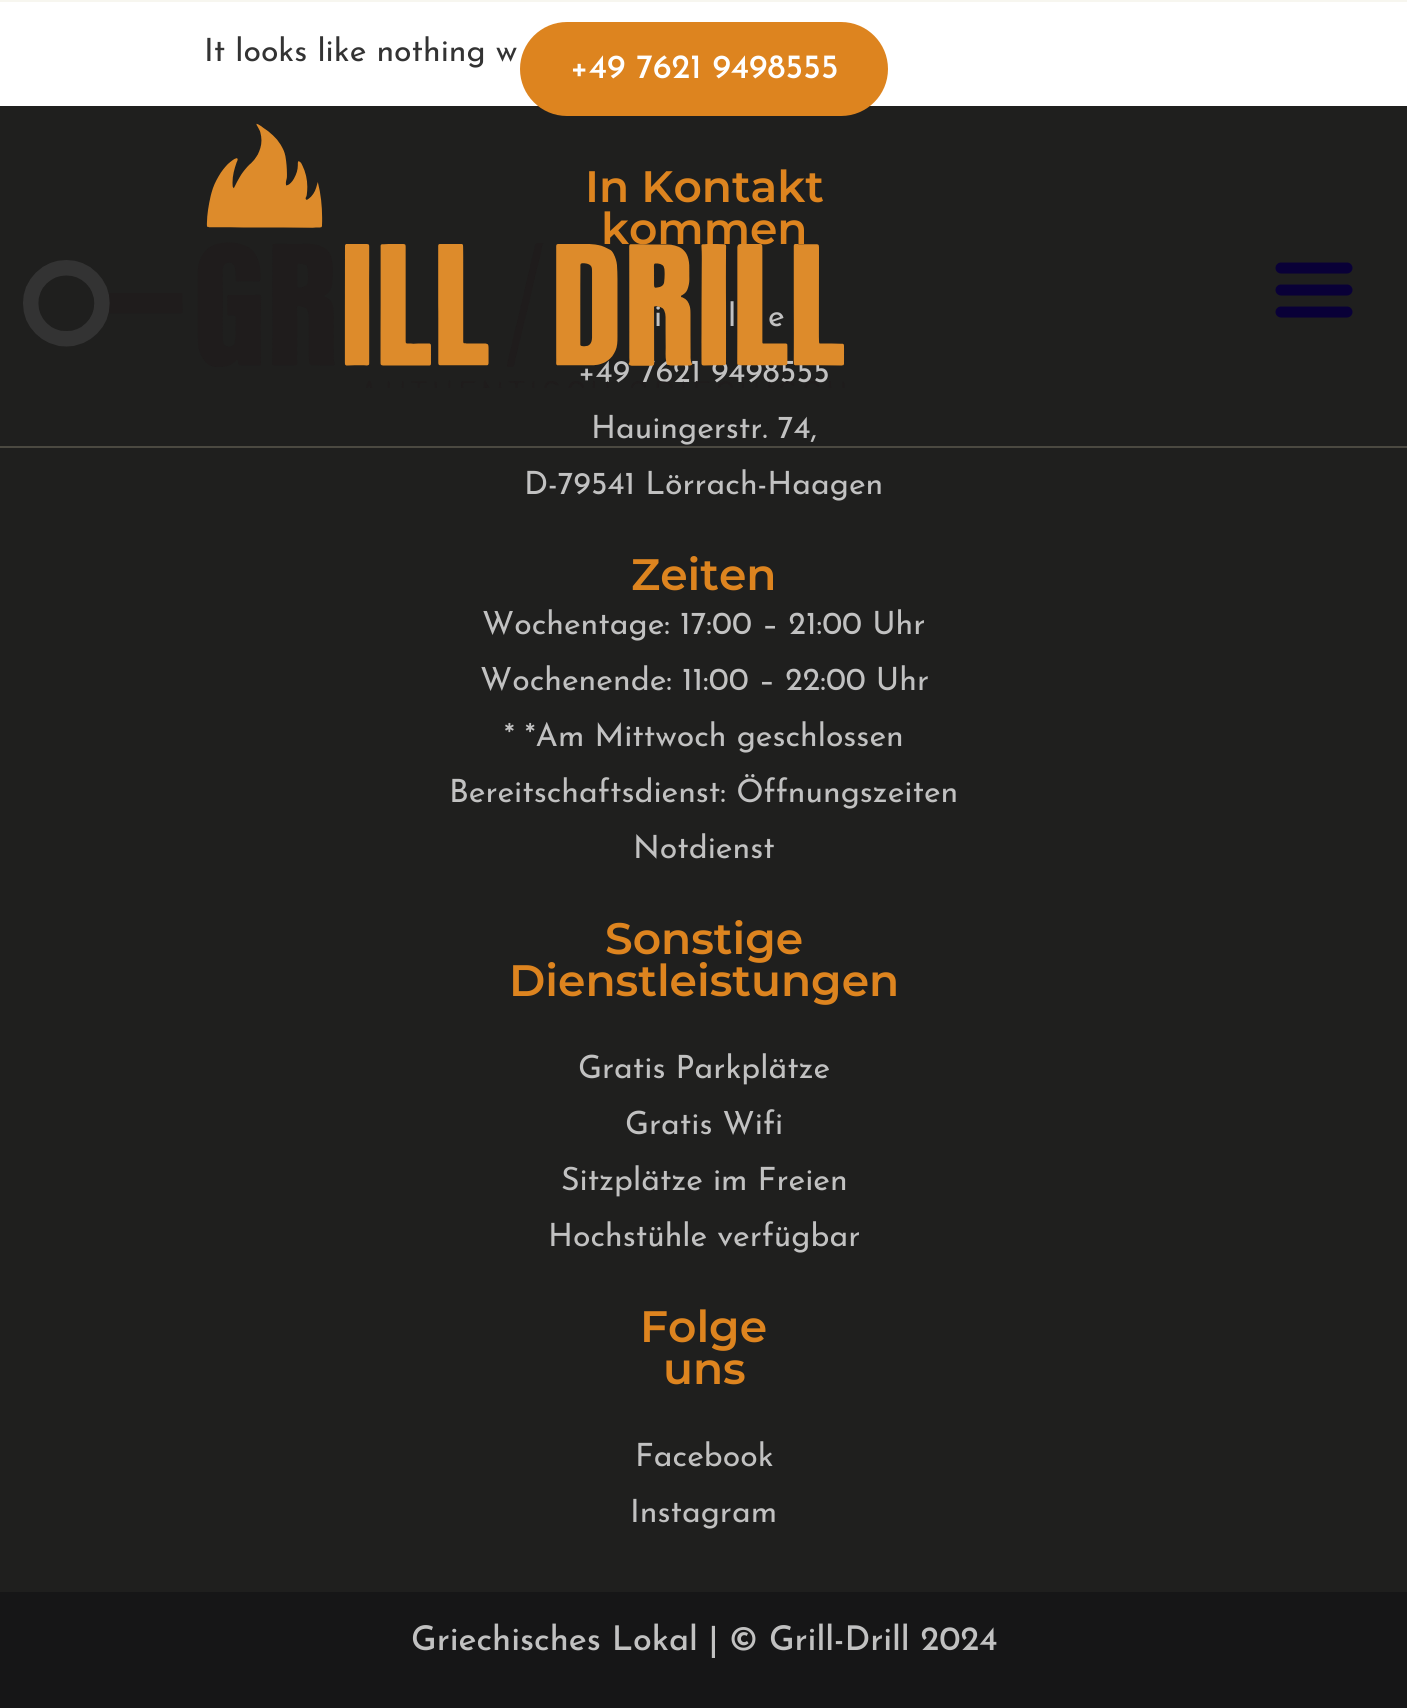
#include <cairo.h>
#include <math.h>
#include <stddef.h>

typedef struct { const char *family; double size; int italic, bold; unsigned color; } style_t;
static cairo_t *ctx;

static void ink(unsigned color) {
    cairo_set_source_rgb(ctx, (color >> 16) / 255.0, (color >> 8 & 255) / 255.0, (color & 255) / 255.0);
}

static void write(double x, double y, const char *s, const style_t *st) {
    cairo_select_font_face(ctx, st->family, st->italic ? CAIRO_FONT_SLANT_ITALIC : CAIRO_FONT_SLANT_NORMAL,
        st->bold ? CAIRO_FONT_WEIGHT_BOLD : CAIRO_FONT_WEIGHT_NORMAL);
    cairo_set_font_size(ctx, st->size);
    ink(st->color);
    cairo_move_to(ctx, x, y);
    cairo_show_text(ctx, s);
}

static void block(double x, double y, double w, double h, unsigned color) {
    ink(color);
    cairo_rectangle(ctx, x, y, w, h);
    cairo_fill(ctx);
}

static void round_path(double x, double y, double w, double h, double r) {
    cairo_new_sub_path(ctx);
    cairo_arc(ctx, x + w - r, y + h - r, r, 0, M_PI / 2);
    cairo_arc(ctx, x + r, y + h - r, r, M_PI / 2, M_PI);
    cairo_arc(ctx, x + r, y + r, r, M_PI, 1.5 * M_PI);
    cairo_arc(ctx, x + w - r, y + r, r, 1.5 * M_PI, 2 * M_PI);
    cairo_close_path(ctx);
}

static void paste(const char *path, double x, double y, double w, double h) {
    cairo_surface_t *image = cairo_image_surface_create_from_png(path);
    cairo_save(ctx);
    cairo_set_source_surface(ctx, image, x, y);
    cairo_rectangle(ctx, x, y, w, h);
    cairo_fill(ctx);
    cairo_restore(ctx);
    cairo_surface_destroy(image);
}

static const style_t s1 = {"Josefin Sans", 32, 0, 0, 0x333333};
static const style_t s2 = {"Josefin Sans Medium", 34, 0, 0, 0xffffff};
static const style_t s3 = {"Montserrat SemiBold", 44, 0, 0, 0xdd841f};
static const style_t s4 = {"Josefin Sans", 32, 0, 0, 0xc1c1c1};
static const style_t s5 = {"Josefin Sans Medium", 34, 0, 0, 0xc1c1c1};

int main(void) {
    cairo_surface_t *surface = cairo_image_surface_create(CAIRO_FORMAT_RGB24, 1407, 1708);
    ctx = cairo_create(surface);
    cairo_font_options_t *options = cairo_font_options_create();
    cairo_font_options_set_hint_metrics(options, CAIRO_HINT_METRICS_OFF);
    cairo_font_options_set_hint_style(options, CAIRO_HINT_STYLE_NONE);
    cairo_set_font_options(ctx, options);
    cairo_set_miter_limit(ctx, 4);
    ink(0xffffff);
    cairo_paint(ctx);
    write(204, 61, "It looks like nothing w", &s1);
    block(0, 0, 1407, 2, 0xf7f6ef);
    block(0, 106, 1407, 1486, 0x1f1f1e);
    block(0, 446, 1407, 2, 0x4b4941);
    ink(0xdd841f);
    round_path(520, 22, 368, 94, 47);
    cairo_fill(ctx);
    write(570, 78, "+49 7621 9498555", &s2);
    write(585, 202, "In Kontakt", &s3);
    write(601, 244, "kommen", &s3);
    write(654, 326, "i", &s4);
    write(728, 326, "l", &s4);
    write(768, 326, "e", &s4);
    write(578, 382, "+49 7621 9498555", &s4);
    paste("pic1.png", 23, 123, 822, 265);
    paste("pic2.png", 1275, 262, 78, 56);
    write(591, 438, "Hauingerstr. 74,", &s4);
    write(524, 494, "D-79541 Lörrach-Haagen", &s4);
    write(631, 590, "Zeiten", &s3);
    write(482, 634, "Wochentage: 17:00 – 21:00 Uhr", &s4);
    write(480, 690, "Wochenende: 11:00 – 22:00 Uhr", &s4);
    write(504, 746, "* *Am Mittwoch geschlossen", &s4);
    write(449, 802, "Bereitschaftsdienst: Öffnungszeiten", &s4);
    write(633, 858, "Notdienst", &s4);
    write(605, 954, "Sonstige", &s3);
    write(509, 996, "Dienstleistungen", &s3);
    write(578, 1078, "Gratis Parkplätze", &s4);
    write(625, 1134, "Gratis Wifi", &s4);
    write(561, 1190, "Sitzplätze im Freien", &s4);
    write(548, 1246, "Hochstühle verfügbar", &s4);
    write(640, 1342, "Folge", &s3);
    write(663, 1384, "uns", &s3);
    write(635, 1466, "Facebook", &s4);
    write(630, 1522, "Instagram", &s4);
    block(0, 1592, 1407, 116, 0x161617);
    write(411, 1650, "Griechisches Lokal | © Grill-Drill 2024", &s5);
    cairo_surface_write_to_png(surface, "screenshot.png");
    cairo_font_options_destroy(options);
    cairo_destroy(ctx);
    cairo_surface_destroy(surface);
    return 0;
}
